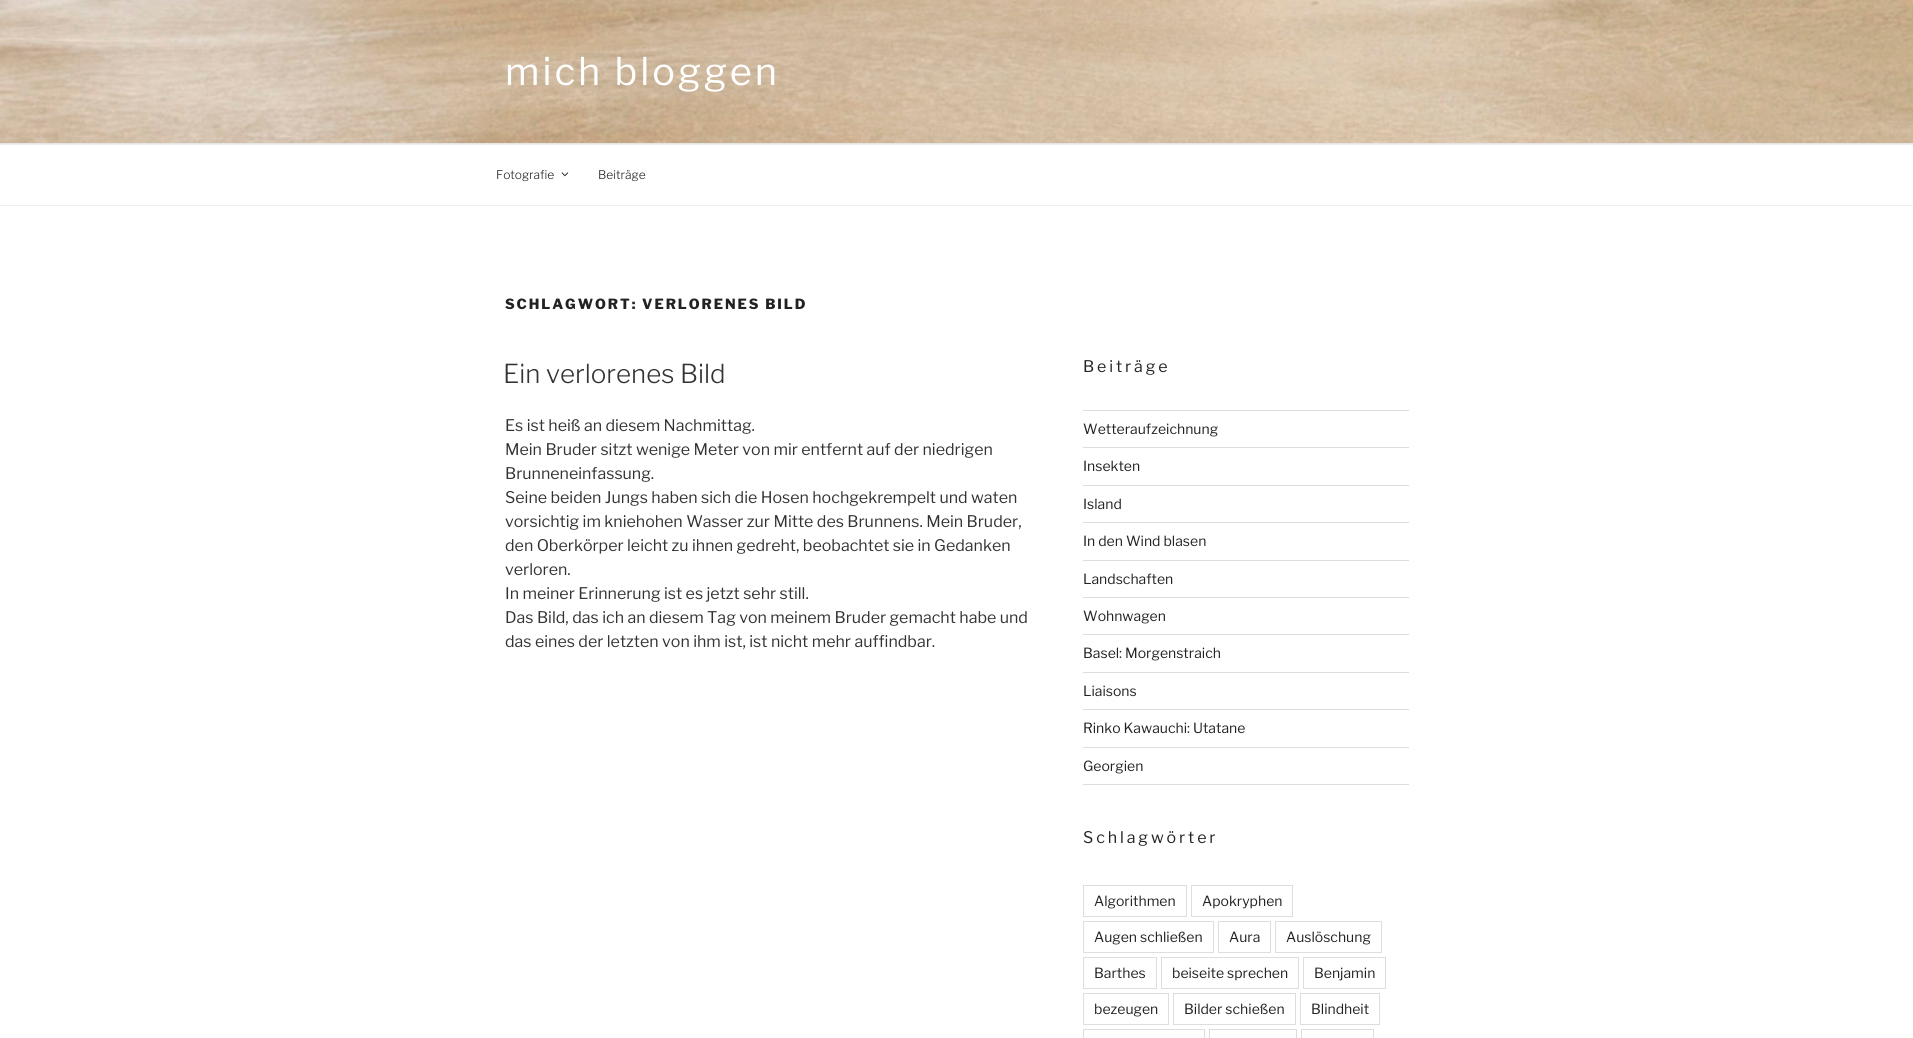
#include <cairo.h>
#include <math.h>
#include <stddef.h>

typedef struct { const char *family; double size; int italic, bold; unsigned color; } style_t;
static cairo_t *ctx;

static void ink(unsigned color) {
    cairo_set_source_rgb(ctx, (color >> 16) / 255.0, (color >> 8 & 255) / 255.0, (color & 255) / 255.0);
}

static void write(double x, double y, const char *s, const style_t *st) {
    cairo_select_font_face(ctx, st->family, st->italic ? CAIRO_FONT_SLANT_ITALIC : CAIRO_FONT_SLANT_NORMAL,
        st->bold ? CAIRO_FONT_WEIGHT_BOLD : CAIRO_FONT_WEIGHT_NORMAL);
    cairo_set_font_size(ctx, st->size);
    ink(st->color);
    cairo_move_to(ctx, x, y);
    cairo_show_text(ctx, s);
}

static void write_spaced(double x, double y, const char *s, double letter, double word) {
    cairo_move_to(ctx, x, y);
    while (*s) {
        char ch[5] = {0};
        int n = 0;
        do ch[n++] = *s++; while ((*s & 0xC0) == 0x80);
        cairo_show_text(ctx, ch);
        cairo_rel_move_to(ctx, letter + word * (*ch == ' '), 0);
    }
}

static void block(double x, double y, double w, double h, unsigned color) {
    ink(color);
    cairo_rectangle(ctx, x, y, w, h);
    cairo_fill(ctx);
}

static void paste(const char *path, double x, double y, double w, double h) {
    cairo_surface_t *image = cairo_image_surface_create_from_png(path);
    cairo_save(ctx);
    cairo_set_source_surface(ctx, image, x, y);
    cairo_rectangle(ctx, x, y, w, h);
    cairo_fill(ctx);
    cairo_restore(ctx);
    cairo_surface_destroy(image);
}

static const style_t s1 = {"Libre Franklin Thin", 12, 0, 0, 0x222222};
static const style_t s2 = {"Libre Franklin Thin", 26, 0, 0, 0x333333};
static const style_t s3 = {"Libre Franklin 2 Thin", 16, 0, 0, 0x333333};
static const style_t s4 = {"Libre Franklin 2 Thin", 14, 0, 0, 0x222222};

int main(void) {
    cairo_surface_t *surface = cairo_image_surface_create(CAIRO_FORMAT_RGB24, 1913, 1038);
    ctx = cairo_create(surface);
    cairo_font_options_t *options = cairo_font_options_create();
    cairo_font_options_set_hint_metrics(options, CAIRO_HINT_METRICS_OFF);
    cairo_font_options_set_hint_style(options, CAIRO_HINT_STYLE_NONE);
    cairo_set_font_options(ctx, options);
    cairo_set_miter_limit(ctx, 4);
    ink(0xffffff);
    cairo_paint(ctx);
    block(0, 143, 1913, 1, 0xe5e5e5);
    paste("pic1.png", 0, 0, 1913, 143);
    cairo_select_font_face(ctx, "Libre Franklin 2 Thin", CAIRO_FONT_SLANT_NORMAL, CAIRO_FONT_WEIGHT_NORMAL);
    cairo_set_font_size(ctx, 38);
    ink(0xffffff);
    write_spaced(505, 85, "mich bloggen", 3, 0);
    block(0, 144, 1913, 1, 0xeeeeee);
    block(0, 205, 1913, 1, 0xeeeeee);
    write(496, 179, "Fotografie", &s1);
    paste("pic2.png", 561, 172, 8, 5);
    write(598, 179, "Beiträge", &s1);
    cairo_select_font_face(ctx, "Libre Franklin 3 Thin", CAIRO_FONT_SLANT_NORMAL, CAIRO_FONT_WEIGHT_NORMAL);
    cairo_set_font_size(ctx, 14);
    write_spaced(505, 309, "SCHLAGWORT: VERLORENES BILD", 1.95, 0);
    write(503, 383, "Ein verlorenes Bild", &s2);
    write(505, 431, "Es ist heiß an diesem Nachmittag.", &s3);
    write(505, 455, "Mein Bruder sitzt wenige Meter von mir entfernt auf der niedrigen", &s3);
    write(505, 479, "Brunneneinfassung.", &s3);
    write(505, 503, "Seine beiden Jungs haben sich die Hosen hochgekrempelt und waten", &s3);
    write(505, 527, "vorsichtig im kniehohen Wasser zur Mitte des Brunnens. Mein Bruder,", &s3);
    write(505, 551, "den Oberkörper leicht zu ihnen gedreht, beobachtet sie in Gedanken", &s3);
    write(505, 575, "verloren.", &s3);
    write(505, 599, "In meiner Erinnerung ist es jetzt sehr still.", &s3);
    write(505, 623, "Das Bild, das ich an diesem Tag von meinem Bruder gemacht habe und", &s3);
    write(505, 647, "das eines der letzten von ihm ist, ist nicht mehr auffindbar.", &s3);
    ink(0x222222);
    write_spaced(1083, 372, "Beiträge", 2.9, 0);
    block(1083, 410, 326, 1, 0xdddddd);
    block(1083, 447, 326, 1, 0xdddddd);
    write(1083, 434, "Wetteraufzeichnung", &s4);
    block(1083, 485, 326, 1, 0xdddddd);
    write(1083, 471, "Insekten", &s4);
    block(1083, 522, 326, 1, 0xdddddd);
    write(1083, 509, "Island", &s4);
    block(1083, 560, 326, 1, 0xdddddd);
    write(1083, 546, "In den Wind blasen", &s4);
    block(1083, 597, 326, 1, 0xdddddd);
    write(1083, 584, "Landschaften", &s4);
    block(1083, 634, 326, 1, 0xdddddd);
    write(1083, 621, "Wohnwagen", &s4);
    block(1083, 672, 326, 1, 0xdddddd);
    write(1083, 658, "Basel: Morgenstraich", &s4);
    block(1083, 709, 326, 1, 0xdddddd);
    write(1083, 696, "Liaisons", &s4);
    block(1083, 747, 326, 1, 0xdddddd);
    write(1083, 733, "Rinko Kawauchi: Utatane", &s4);
    block(1083, 784, 326, 1, 0xdddddd);
    write(1083, 771, "Georgien", &s4);
    cairo_set_font_size(ctx, 16);
    write_spaced(1083, 843, "Schlagwörter", 2.9, 0);
    cairo_rectangle(ctx, 1083.5, 885.5, 103, 31);
    ink(0xdddddd);
    cairo_set_line_width(ctx, 1);
    cairo_stroke(ctx);
    write(1094, 906, "Algorithmen", &s4);
    cairo_rectangle(ctx, 1191.5, 885.5, 101, 31);
    ink(0xdddddd);
    cairo_stroke(ctx);
    write(1202, 906, "Apokryphen", &s4);
    cairo_rectangle(ctx, 1083.5, 921.5, 130, 31);
    ink(0xdddddd);
    cairo_stroke(ctx);
    write(1094, 942, "Augen schließen", &s4);
    cairo_rectangle(ctx, 1218.5, 921.5, 52, 31);
    ink(0xdddddd);
    cairo_stroke(ctx);
    write(1229, 942, "Aura", &s4);
    cairo_rectangle(ctx, 1275.5, 921.5, 106, 31);
    ink(0xdddddd);
    cairo_stroke(ctx);
    write(1286, 942, "Auslöschung", &s4);
    cairo_rectangle(ctx, 1083.5, 957.5, 73, 31);
    ink(0xdddddd);
    cairo_stroke(ctx);
    write(1094, 978, "Barthes", &s4);
    cairo_rectangle(ctx, 1161.5, 957.5, 137, 31);
    ink(0xdddddd);
    cairo_stroke(ctx);
    write(1172, 978, "beiseite sprechen", &s4);
    cairo_rectangle(ctx, 1303.5, 957.5, 82, 31);
    ink(0xdddddd);
    cairo_stroke(ctx);
    write(1314, 978, "Benjamin", &s4);
    cairo_rectangle(ctx, 1083.5, 993.5, 85, 31);
    ink(0xdddddd);
    cairo_stroke(ctx);
    write(1094, 1014, "bezeugen", &s4);
    cairo_rectangle(ctx, 1173.5, 993.5, 122, 31);
    ink(0xdddddd);
    cairo_stroke(ctx);
    write(1184, 1014, "Bilder schießen", &s4);
    cairo_rectangle(ctx, 1300.5, 993.5, 79, 31);
    ink(0xdddddd);
    cairo_stroke(ctx);
    write(1311, 1014, "Blindheit", &s4);
    cairo_rectangle(ctx, 1083.5, 1029.5, 121, 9);
    ink(0xdddddd);
    cairo_stroke(ctx);
    cairo_rectangle(ctx, 1209.5, 1029.5, 87, 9);
    cairo_stroke(ctx);
    cairo_rectangle(ctx, 1301.5, 1029.5, 72, 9);
    cairo_stroke(ctx);
    cairo_surface_write_to_png(surface, "screenshot.png");
    cairo_font_options_destroy(options);
    cairo_destroy(ctx);
    cairo_surface_destroy(surface);
    return 0;
}
